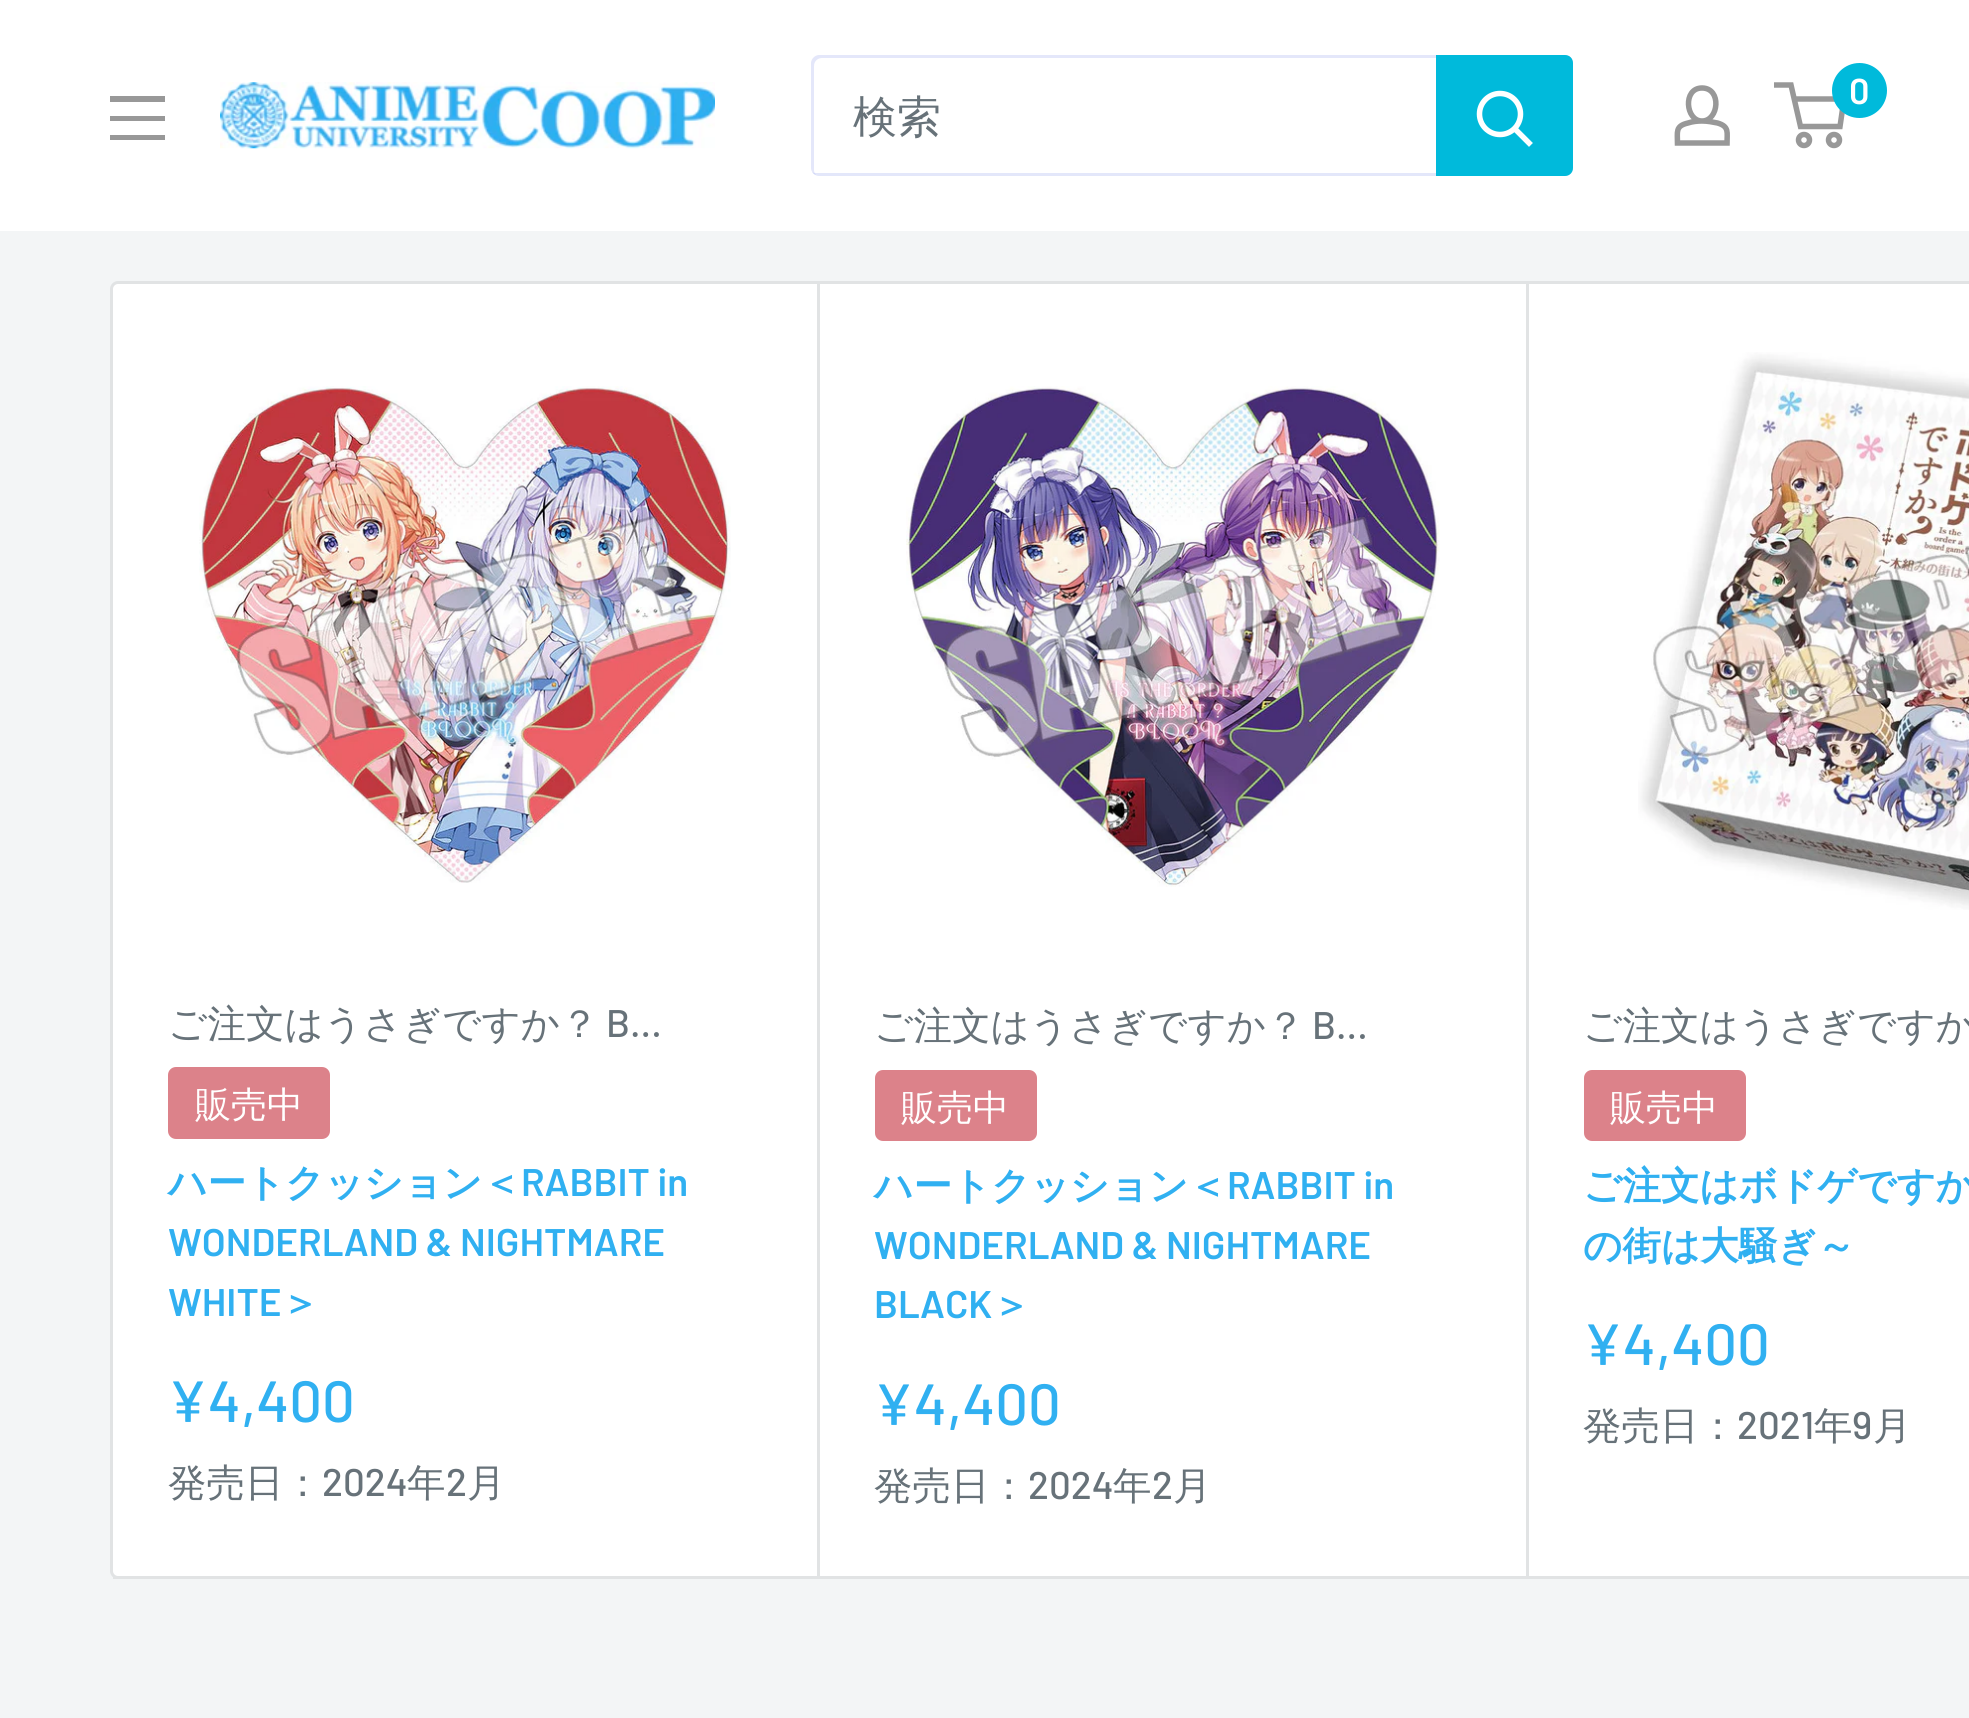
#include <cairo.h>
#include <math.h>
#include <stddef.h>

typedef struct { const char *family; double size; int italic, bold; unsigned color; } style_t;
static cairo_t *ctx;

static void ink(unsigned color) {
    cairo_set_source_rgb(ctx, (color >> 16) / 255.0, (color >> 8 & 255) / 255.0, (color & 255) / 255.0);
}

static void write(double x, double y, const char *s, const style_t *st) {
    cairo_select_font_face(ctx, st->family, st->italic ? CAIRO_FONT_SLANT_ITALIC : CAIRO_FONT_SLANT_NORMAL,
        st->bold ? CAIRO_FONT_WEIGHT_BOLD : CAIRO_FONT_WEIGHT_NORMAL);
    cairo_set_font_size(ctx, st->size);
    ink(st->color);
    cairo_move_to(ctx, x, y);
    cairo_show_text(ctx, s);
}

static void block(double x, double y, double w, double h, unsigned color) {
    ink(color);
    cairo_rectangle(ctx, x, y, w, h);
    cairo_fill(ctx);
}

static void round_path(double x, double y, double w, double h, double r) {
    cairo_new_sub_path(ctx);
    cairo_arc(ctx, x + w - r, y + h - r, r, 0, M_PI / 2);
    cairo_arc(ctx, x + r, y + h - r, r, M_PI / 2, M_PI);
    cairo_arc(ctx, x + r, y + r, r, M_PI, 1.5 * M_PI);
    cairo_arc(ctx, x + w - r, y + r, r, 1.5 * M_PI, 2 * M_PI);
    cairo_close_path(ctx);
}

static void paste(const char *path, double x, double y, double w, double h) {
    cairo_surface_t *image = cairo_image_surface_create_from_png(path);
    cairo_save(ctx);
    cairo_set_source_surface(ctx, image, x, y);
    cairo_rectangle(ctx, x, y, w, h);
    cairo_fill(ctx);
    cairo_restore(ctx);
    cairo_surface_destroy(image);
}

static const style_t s1 = {"WenQuanYi Zen Hei Medium", 44, 0, 0, 0x677279};
static const style_t s2 = {"Barlow SemiBold", 36, 0, 0, 0xffffff};
static const style_t s3 = {"WenQuanYi Zen Hei Medium", 38.5, 0, 0, 0x677279};
static const style_t s4 = {"Barlow Medium", 38.5, 0, 0, 0x677279};
static const style_t s5 = {"WenQuanYi Zen Hei Medium", 36, 0, 0, 0xffffff};
static const style_t s6 = {"WenQuanYi Zen Hei", 38.5, 0, 1, 0x30b0f1};
static const style_t s7 = {"Barlow SemiBold", 38.5, 0, 0, 0x30b0f1};
static const style_t s8 = {"Barlow Medium", 58, 0, 0, 0x30b0f1};

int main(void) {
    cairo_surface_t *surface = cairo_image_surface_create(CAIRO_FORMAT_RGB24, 1969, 1718);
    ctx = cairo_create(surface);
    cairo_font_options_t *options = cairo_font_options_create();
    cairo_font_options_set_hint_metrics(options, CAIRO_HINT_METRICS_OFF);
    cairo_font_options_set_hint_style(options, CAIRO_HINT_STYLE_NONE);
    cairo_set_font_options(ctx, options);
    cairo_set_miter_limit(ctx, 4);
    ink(0xf3f5f6);
    cairo_paint(ctx);
    block(0, 0, 1969, 231, 0xffffff);
    ink(0x989898);
    cairo_set_fill_rule(ctx, CAIRO_FILL_RULE_EVEN_ODD);
    cairo_new_path(ctx);
    cairo_move_to(ctx, 110, 135);
    cairo_line_to(ctx, 165, 135);
    cairo_line_to(ctx, 165, 140);
    cairo_line_to(ctx, 110, 140);
    cairo_close_path(ctx);
    cairo_move_to(ctx, 110, 96);
    cairo_line_to(ctx, 165, 96);
    cairo_line_to(ctx, 165, 102);
    cairo_line_to(ctx, 110, 102);
    cairo_close_path(ctx);
    cairo_move_to(ctx, 110, 116);
    cairo_line_to(ctx, 165, 116);
    cairo_line_to(ctx, 165, 121);
    cairo_line_to(ctx, 110, 121);
    cairo_close_path(ctx);
    cairo_fill(ctx);
    paste("pic1.png", 220, 82, 495, 67);
    ink(0xe3e7fa);
    cairo_set_fill_rule(ctx, CAIRO_FILL_RULE_WINDING);
    cairo_new_path(ctx);
    cairo_move_to(ctx, 812, 172);
    cairo_curve_to(ctx, 813, 174, 816, 176, 819, 176);
    cairo_line_to(ctx, 1565, 176);
    cairo_curve_to(ctx, 1569, 176, 1573, 172, 1573, 168);
    cairo_line_to(ctx, 1573, 63);
    cairo_curve_to(ctx, 1573, 60, 1571, 57, 1569, 56);
    cairo_line_to(ctx, 1570, 60);
    cairo_line_to(ctx, 1570, 165);
    cairo_curve_to(ctx, 1570, 170, 1567, 173, 1562, 173);
    cairo_line_to(ctx, 817, 173);
    cairo_curve_to(ctx, 815, 173, 813, 173, 812, 172);
    cairo_close_path(ctx);
    cairo_fill(ctx);
    cairo_set_source_rgba(ctx, 0.639, 0.686, 0.937, 0.3);
    cairo_new_path(ctx);
    cairo_move_to(ctx, 822, 58);
    cairo_line_to(ctx, 1568, 58);
    cairo_line_to(ctx, 1572, 59);
    cairo_curve_to(ctx, 1571, 57, 1568, 55, 1565, 55);
    cairo_line_to(ctx, 819, 55);
    cairo_curve_to(ctx, 815, 55, 811, 59, 811, 63);
    cairo_line_to(ctx, 811, 168);
    cairo_curve_to(ctx, 811, 171, 813, 174, 816, 175);
    cairo_curve_to(ctx, 815, 174, 814, 172, 814, 170);
    cairo_line_to(ctx, 814, 66);
    cairo_curve_to(ctx, 814, 61, 818, 58, 822, 58);
    cairo_close_path(ctx);
    cairo_fill(ctx);
    write(853, 132, "検索", &s1);
    ink(0x00badb);
    cairo_new_path(ctx);
    cairo_move_to(ctx, 1436, 55);
    cairo_line_to(ctx, 1565, 55);
    cairo_curve_to(ctx, 1569.5, 55, 1573, 58.5, 1573, 63);
    cairo_line_to(ctx, 1573, 168);
    cairo_curve_to(ctx, 1573, 172.5, 1569.5, 176, 1565, 176);
    cairo_line_to(ctx, 1436, 176);
    cairo_close_path(ctx);
    cairo_fill(ctx);
    cairo_new_path(ctx);
    cairo_move_to(ctx, 1529, 143);
    cairo_line_to(ctx, 1515, 129);
    ink(0xffffff);
    cairo_set_line_width(ctx, 5.5);
    cairo_set_line_cap(ctx, CAIRO_LINE_CAP_SQUARE);
    cairo_stroke(ctx);
    cairo_arc(ctx, 1500, 114, 20.5, 0, 2 * M_PI);
    cairo_set_line_cap(ctx, CAIRO_LINE_CAP_BUTT);
    cairo_stroke(ctx);
    cairo_new_path(ctx);
    cairo_move_to(ctx, 1702, 121);
    cairo_curve_to(ctx, 1707.5, 121, 1712.5, 122, 1717.5, 123);
    cairo_curve_to(ctx, 1729.5, 126.5, 1727, 132.5, 1727, 143);
    cairo_line_to(ctx, 1677.5, 143);
    cairo_curve_to(ctx, 1677.5, 132, 1675, 126, 1688, 123);
    cairo_curve_to(ctx, 1692.5, 121.5, 1697.5, 121, 1702, 121);
    cairo_close_path(ctx);
    cairo_move_to(ctx, 1702, 121);
    cairo_curve_to(ctx, 1685.5, 121, 1682.5, 88, 1702, 88);
    cairo_curve_to(ctx, 1722, 88, 1719, 121, 1702, 121);
    cairo_close_path(ctx);
    ink(0x989898);
    cairo_stroke(ctx);
    cairo_arc(ctx, 1804, 140, 5.5, 0, 2 * M_PI);
    cairo_stroke(ctx);
    cairo_arc(ctx, 1834, 140, 5.5, 0, 2 * M_PI);
    cairo_stroke(ctx);
    cairo_new_path(ctx);
    cairo_move_to(ctx, 1794, 99);
    cairo_line_to(ctx, 1844, 99);
    cairo_line_to(ctx, 1840, 126.5);
    cairo_line_to(ctx, 1800.5, 126.5);
    cairo_line_to(ctx, 1791, 85);
    cairo_line_to(ctx, 1774, 85);
    cairo_stroke(ctx);
    ink(0x00badb);
    cairo_arc(ctx, 1859.5, 90.5, 27.5, 0, 2 * M_PI);
    cairo_fill(ctx);
    write(1849, 104, "0", &s2);
    cairo_new_path(ctx);
    cairo_move_to(ctx, 118, 282.5);
    cairo_line_to(ctx, 818.5, 282.5);
    cairo_line_to(ctx, 818.5, 1577.5);
    cairo_line_to(ctx, 118, 1577.5);
    cairo_curve_to(ctx, 114.5, 1577.5, 111.5, 1574.5, 111.5, 1571);
    cairo_line_to(ctx, 111.5, 289);
    cairo_curve_to(ctx, 111.5, 285.5, 114.5, 282.5, 118, 282.5);
    cairo_close_path(ctx);
    cairo_fill_preserve(ctx);
    ink(0xe1e3e4);
    cairo_set_line_width(ctx, 3);
    cairo_stroke(ctx);
    paste("pic2.png", 199, 386, 532, 497);
    write(168, 1037, "ご注文はうさぎですか？", &s3);
    write(606, 1037, "B...", &s4);
    ink(0xdc828a);
    round_path(168, 1067, 162, 72, 8);
    cairo_fill(ctx);
    write(195, 1117, "販売中", &s5);
    write(168, 1196, "ハートクッション＜", &s6);
    write(521, 1196, "RABBIT in", &s7);
    write(168, 1256, "WONDERLAND & NIGHTMARE", &s7);
    write(168, 1316, "WHITE", &s7);
    write(281, 1316, "＞", &s6);
    write(168, 1422, "¥4,400", &s8);
    write(168, 1496, "発売日：", &s3);
    write(322, 1496, "2024", &s4);
    write(407, 1496, "年", &s3);
    write(446, 1496, "2", &s4);
    write(467, 1496, "月", &s3);
    ink(0xe1e3e4);
    cairo_new_path(ctx);
    cairo_move_to(ctx, 113, 1576);
    cairo_line_to(ctx, 113, 1579);
    cairo_line_to(ctx, 817, 1579);
    cairo_line_to(ctx, 817, 286);
    cairo_line_to(ctx, 817, 1576);
    cairo_close_path(ctx);
    cairo_fill(ctx);
    block(820, 284, 706, 1292, 0xffffff);
    block(820, 281, 1149, 3, 0xe1e3e4);
    block(1526, 281, 3, 1298, 0xe1e3e4);
    block(820, 1576, 1149, 3, 0xe1e3e4);
    paste("pic3.png", 906, 386, 534, 501);
    write(874, 1039, "ご注文はうさぎですか？", &s3);
    write(1312, 1039, "B...", &s4);
    ink(0xdc828a);
    round_path(875, 1070, 162, 71, 8);
    cairo_fill(ctx);
    write(901, 1120, "販売中", &s5);
    write(874, 1199, "ハートクッション＜", &s6);
    write(1227, 1199, "RABBIT in", &s7);
    write(874, 1259, "WONDERLAND & NIGHTMARE", &s7);
    write(874, 1318, "BLACK", &s7);
    write(992, 1318, "＞", &s6);
    write(874, 1425, "¥4,400", &s8);
    write(874, 1499, "発売日：", &s3);
    write(1028, 1499, "2024", &s4);
    write(1113, 1499, "年", &s3);
    write(1152, 1499, "2", &s4);
    write(1173, 1499, "月", &s3);
    block(1529, 284, 440, 1292, 0xffffff);
    paste("pic4.png", 1638, 352, 331, 558);
    write(1583, 1039, "ご注文はうさぎですか", &s3);
    ink(0xdc828a);
    round_path(1584, 1070, 162, 71, 8);
    cairo_fill(ctx);
    write(1610, 1120, "販売中", &s5);
    write(1583, 1199, "ご注文はボドゲですか", &s6);
    write(1583, 1259, "の街は大騒ぎ～", &s6);
    write(1583, 1365, "¥4,400", &s8);
    write(1583, 1439, "発売日：", &s3);
    write(1737, 1439, "2021", &s4);
    write(1814, 1439, "年", &s3);
    write(1852, 1439, "9", &s4);
    write(1873, 1439, "月", &s3);
    cairo_surface_write_to_png(surface, "screenshot.png");
    cairo_font_options_destroy(options);
    cairo_destroy(ctx);
    cairo_surface_destroy(surface);
    return 0;
}
